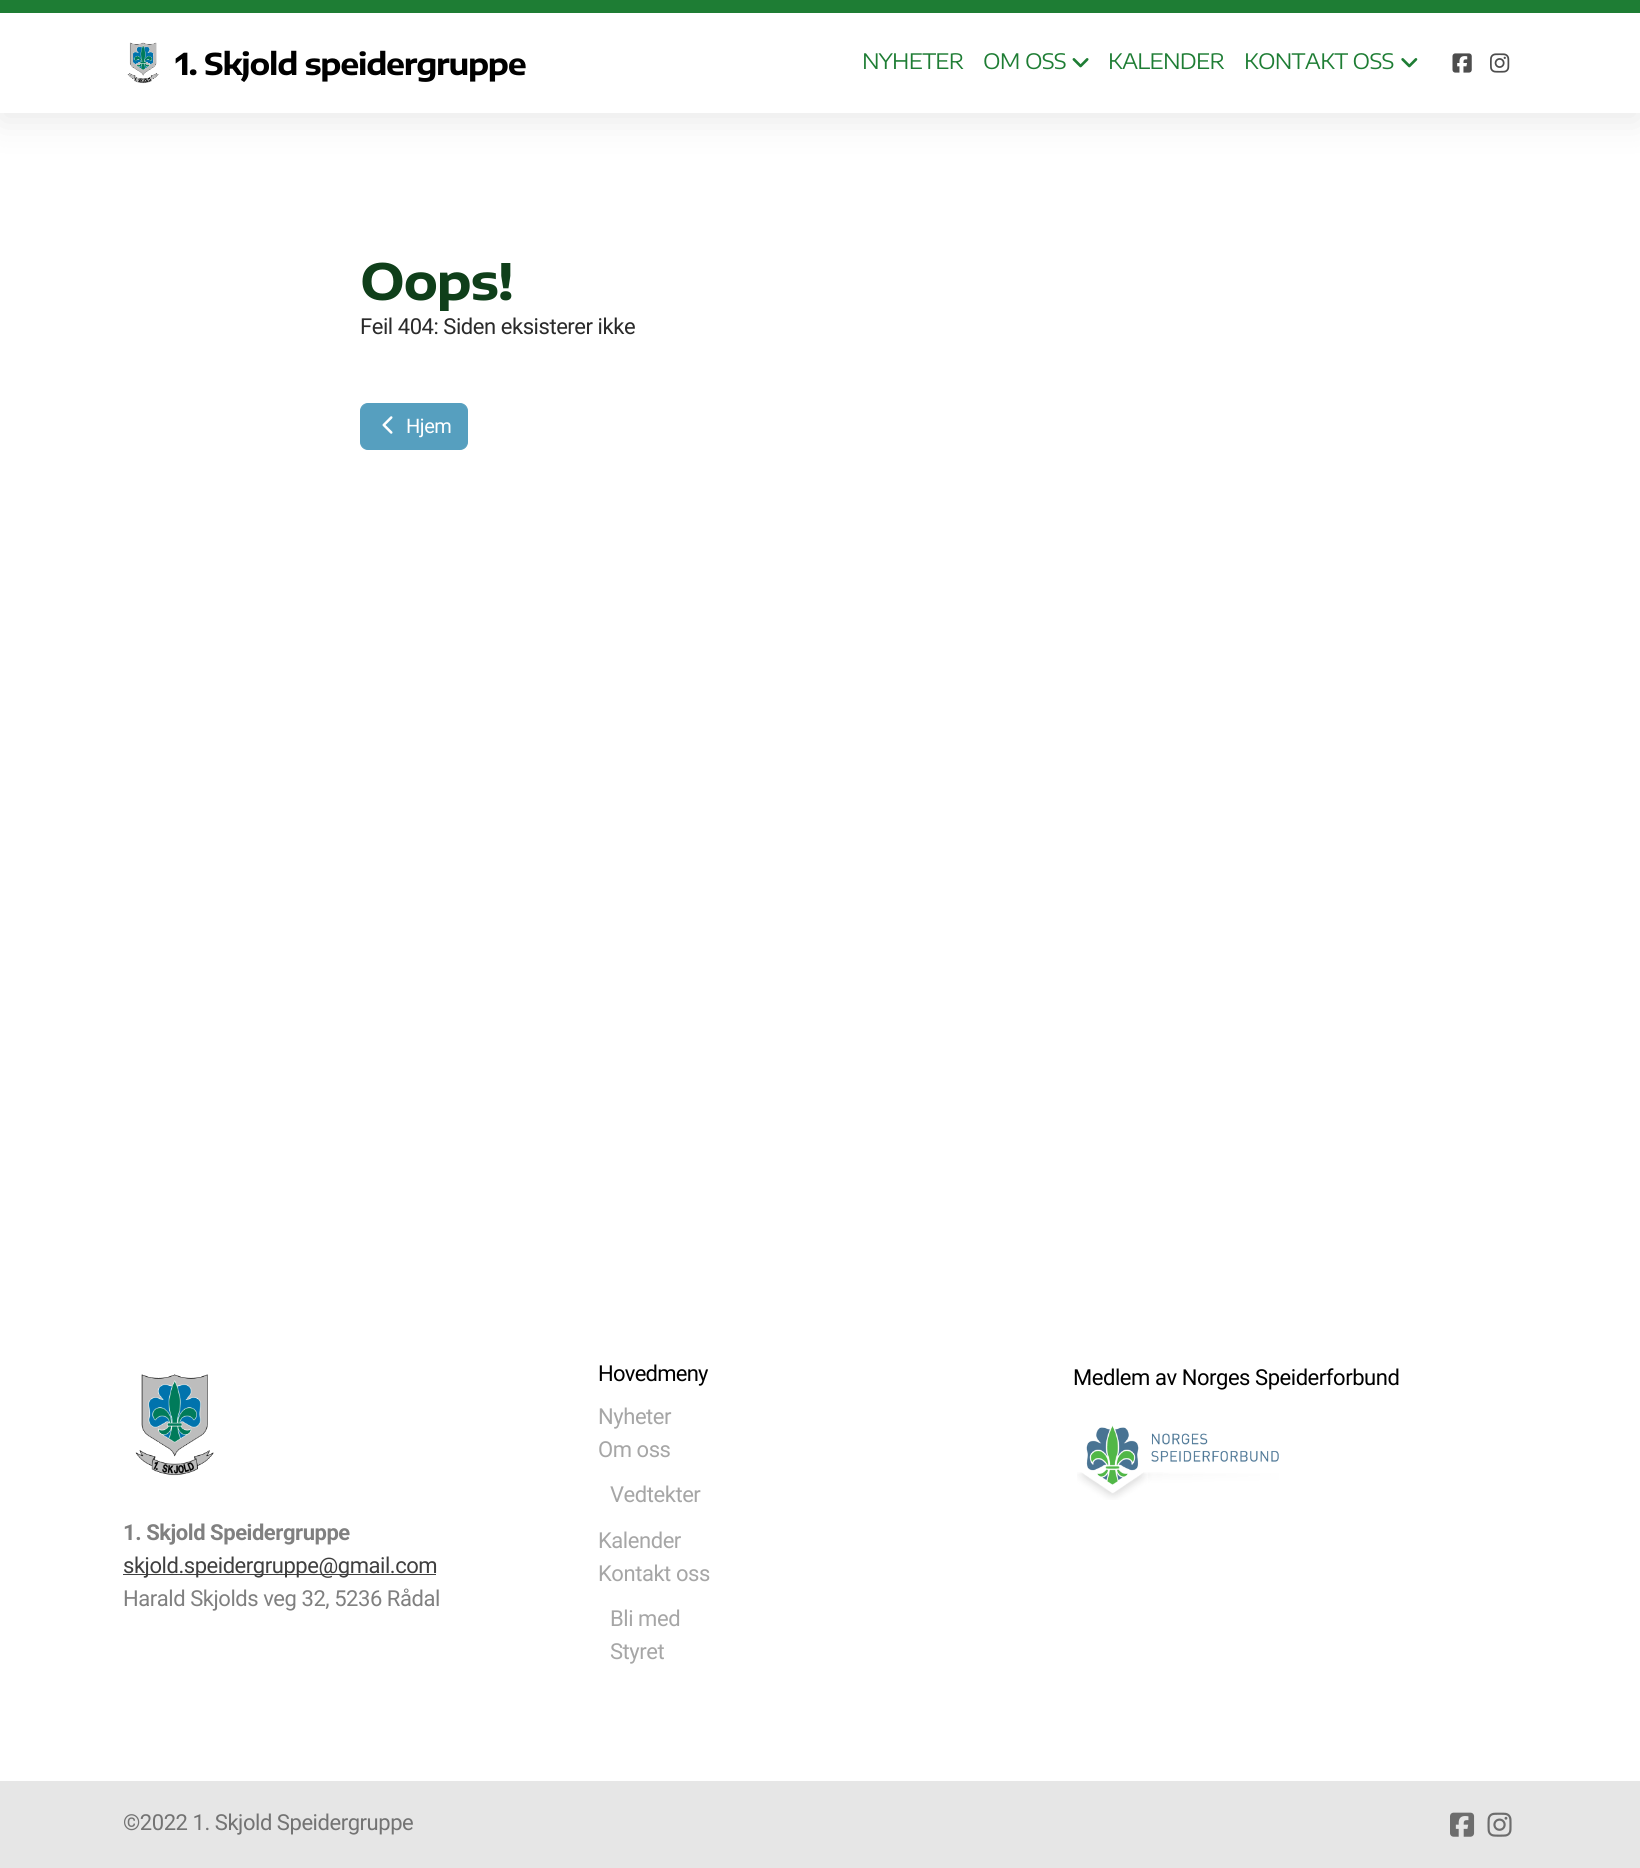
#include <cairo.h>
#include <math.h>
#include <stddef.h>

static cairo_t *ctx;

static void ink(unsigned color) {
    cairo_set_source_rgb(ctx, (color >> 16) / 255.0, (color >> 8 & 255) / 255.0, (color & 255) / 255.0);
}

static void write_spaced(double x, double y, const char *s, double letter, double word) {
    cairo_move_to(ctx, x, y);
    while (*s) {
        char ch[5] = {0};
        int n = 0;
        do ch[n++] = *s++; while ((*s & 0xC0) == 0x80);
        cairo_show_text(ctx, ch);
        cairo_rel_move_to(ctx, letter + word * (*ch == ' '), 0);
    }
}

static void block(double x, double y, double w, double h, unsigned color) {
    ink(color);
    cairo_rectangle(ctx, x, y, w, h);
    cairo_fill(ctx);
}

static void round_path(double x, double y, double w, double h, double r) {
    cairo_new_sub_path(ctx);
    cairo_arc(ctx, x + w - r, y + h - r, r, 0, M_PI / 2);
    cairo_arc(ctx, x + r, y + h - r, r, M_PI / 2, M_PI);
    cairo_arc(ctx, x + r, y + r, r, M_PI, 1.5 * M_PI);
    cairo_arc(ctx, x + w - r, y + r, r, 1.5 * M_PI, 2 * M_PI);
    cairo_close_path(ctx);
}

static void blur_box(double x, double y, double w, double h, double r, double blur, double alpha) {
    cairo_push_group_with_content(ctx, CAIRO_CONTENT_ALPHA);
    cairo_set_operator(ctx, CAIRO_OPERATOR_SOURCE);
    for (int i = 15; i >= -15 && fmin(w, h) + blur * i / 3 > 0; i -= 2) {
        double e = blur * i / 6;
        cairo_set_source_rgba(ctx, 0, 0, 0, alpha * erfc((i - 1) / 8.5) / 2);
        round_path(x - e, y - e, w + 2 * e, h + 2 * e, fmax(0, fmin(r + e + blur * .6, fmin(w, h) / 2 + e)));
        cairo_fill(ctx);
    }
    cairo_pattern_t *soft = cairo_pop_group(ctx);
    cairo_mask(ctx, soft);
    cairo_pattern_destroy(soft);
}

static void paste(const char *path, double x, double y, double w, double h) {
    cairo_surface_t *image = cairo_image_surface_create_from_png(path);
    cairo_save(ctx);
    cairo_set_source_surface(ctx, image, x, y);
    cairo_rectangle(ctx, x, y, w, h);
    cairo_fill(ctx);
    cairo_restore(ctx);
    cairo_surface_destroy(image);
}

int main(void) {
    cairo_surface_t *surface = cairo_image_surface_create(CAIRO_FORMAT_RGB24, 1640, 1868);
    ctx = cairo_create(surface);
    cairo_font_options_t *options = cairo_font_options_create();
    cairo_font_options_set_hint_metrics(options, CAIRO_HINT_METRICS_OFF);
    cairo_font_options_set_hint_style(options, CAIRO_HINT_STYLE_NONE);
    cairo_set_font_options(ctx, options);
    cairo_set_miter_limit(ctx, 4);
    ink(0xffffff);
    cairo_paint(ctx);
    ink(0x000000);
    blur_box(0, 9, 1640, 112, 0, 18, 0.09);
    block(0, 13, 1640, 100, 0xffffff);
    block(0, 0, 1640, 13, 0x1e7d34);
    paste("pic1.png", 127, 42, 32, 42);
    cairo_select_font_face(ctx, "Encode Sans Expanded", CAIRO_FONT_SLANT_NORMAL, CAIRO_FONT_WEIGHT_BOLD);
    cairo_set_font_size(ctx, 30);
    ink(0x000000);
    write_spaced(175, 75, "1. Skjold speidergruppe", -1.25, 0);
    cairo_select_font_face(ctx, "Encode Sans Expanded", CAIRO_FONT_SLANT_NORMAL, CAIRO_FONT_WEIGHT_NORMAL);
    cairo_set_font_size(ctx, 21.25);
    ink(0x1e7d34);
    write_spaced(862, 69, "NYHETER", -0.75, 0);
    write_spaced(983, 69, "OM OSS", -0.75, 0);
    paste("pic2.png", 1072, 58, 17, 10);
    write_spaced(1108, 69, "KALENDER", -0.75, 0);
    write_spaced(1244, 69, "KONTAKT OSS", -0.75, 0);
    paste("pic3.png", 1401, 58, 17, 10);
    paste("pic4.png", 1452, 53, 20, 20);
    paste("pic5.png", 1490, 53, 20, 20);
    cairo_select_font_face(ctx, "Encode Sans Expanded", CAIRO_FONT_SLANT_NORMAL, CAIRO_FONT_WEIGHT_BOLD);
    cairo_set_font_size(ctx, 50);
    ink(0x0f3f1a);
    write_spaced(360, 300, "Oops!", -1.5, 0);
    cairo_select_font_face(ctx, "Roboto", CAIRO_FONT_SLANT_NORMAL, CAIRO_FONT_WEIGHT_NORMAL);
    cairo_set_font_size(ctx, 22);
    ink(0x2a2a2a);
    write_spaced(360, 334, "Feil 404: Siden eksisterer ikke", -0.45, 0);
    ink(0x569fbf);
    round_path(360.5, 403.5, 107, 46, 7.5);
    cairo_fill_preserve(ctx);
    cairo_set_line_width(ctx, 1);
    cairo_stroke(ctx);
    paste("pic6.png", 382, 416, 11, 18);
    cairo_set_font_size(ctx, 20);
    ink(0xffffff);
    write_spaced(406, 433, "Hjem", -0.45, 0);
    cairo_set_font_size(ctx, 22);
    ink(0x000000);
    write_spaced(598, 1381, "Hovedmeny", -0.75, 0);
    ink(0xa6a6a6);
    write_spaced(598, 1424, "Nyheter", -0.45, 0);
    write_spaced(598, 1457, "Om oss", -0.45, 0);
    write_spaced(610, 1502, "Vedtekter", -0.45, 0);
    write_spaced(598, 1548, "Kalender", -0.45, 0);
    write_spaced(598, 1581, "Kontakt oss", -0.45, 0);
    write_spaced(610, 1626, "Bli med", -0.45, 0);
    write_spaced(610, 1659, "Styret", -0.45, 0);
    ink(0x000000);
    write_spaced(1073, 1385, "Medlem av Norges Speiderforbund", -0.45, 0);
    paste("pic7.png", 1077, 1425, 202, 75);
    paste("pic8.png", 135, 1374, 79, 102);
    cairo_select_font_face(ctx, "Roboto", CAIRO_FONT_SLANT_NORMAL, CAIRO_FONT_WEIGHT_BOLD);
    ink(0x808080);
    write_spaced(123, 1540, "1. Skjold Speidergruppe", -0.45, 0);
    block(123, 1574, 313, 1, 0x404040);
    cairo_select_font_face(ctx, "Roboto", CAIRO_FONT_SLANT_NORMAL, CAIRO_FONT_WEIGHT_NORMAL);
    ink(0x3f3f3f);
    write_spaced(123, 1573, "skjold.speidergruppe@gmail.com", -0.45, 0);
    ink(0x808080);
    write_spaced(123, 1606, "Harald Skjolds veg 32, 5236 Rådal", -0.45, 0);
    block(0, 1781, 1640, 87, 0xe6e6e6);
    ink(0x737373);
    write_spaced(123, 1830, "©2022 1. Skjold Speidergruppe", -0.45, 0);
    paste("pic9.png", 1450, 1812, 25, 25);
    paste("pic10.png", 1487, 1812, 25, 25);
    cairo_surface_write_to_png(surface, "screenshot.png");
    cairo_font_options_destroy(options);
    cairo_destroy(ctx);
    cairo_surface_destroy(surface);
    return 0;
}
